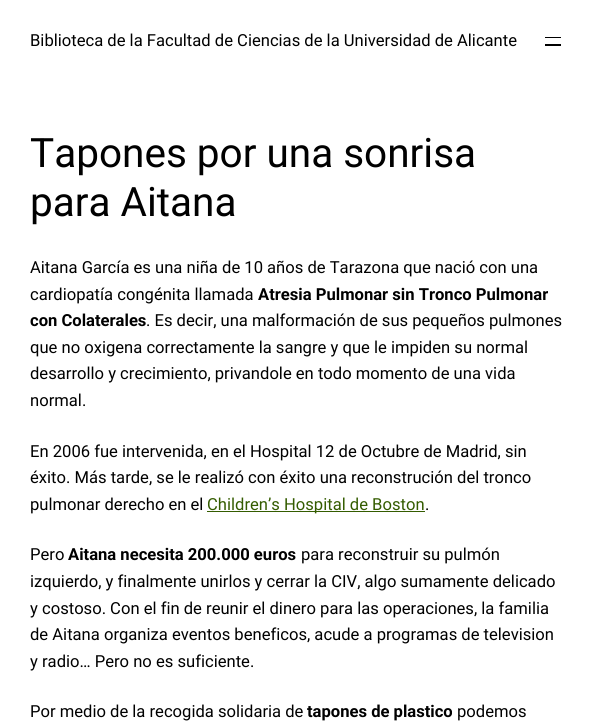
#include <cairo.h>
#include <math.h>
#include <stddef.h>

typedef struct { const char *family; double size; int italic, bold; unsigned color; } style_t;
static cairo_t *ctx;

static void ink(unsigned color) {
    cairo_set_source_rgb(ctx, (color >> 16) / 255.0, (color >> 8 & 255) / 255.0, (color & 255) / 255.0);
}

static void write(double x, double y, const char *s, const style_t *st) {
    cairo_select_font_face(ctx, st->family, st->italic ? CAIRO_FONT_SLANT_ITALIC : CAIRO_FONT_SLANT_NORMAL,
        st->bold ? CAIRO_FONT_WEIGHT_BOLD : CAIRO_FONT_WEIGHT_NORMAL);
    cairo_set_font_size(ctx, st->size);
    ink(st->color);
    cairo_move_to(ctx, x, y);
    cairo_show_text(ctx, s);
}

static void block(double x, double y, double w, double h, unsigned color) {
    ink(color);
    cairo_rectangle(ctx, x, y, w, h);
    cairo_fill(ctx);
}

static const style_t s1 = {"Roboto", 16.6, 0, 0, 0x000000};
static const style_t s2 = {"Roboto", 40.5, 0, 0, 0x000000};
static const style_t s3 = {"Roboto", 16.6, 0, 1, 0x000000};
static const style_t s4 = {"Roboto", 16.6, 0, 0, 0x345c00};

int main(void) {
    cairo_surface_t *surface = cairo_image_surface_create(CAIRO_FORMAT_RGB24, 595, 725);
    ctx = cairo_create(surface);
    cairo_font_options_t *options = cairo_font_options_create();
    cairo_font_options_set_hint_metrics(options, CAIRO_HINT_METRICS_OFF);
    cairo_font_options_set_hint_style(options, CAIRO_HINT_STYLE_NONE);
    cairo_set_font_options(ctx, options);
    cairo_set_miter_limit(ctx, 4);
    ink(0xffffff);
    cairo_paint(ctx);
    write(30, 46, "Biblioteca de la Facultad de Ciencias de la Universidad de Alicante", &s1);
    block(545, 37, 16, 1, 0x000000);
    block(545, 44, 16, 2, 0x000000);
    write(30, 167, "Tapones por una sonrisa", &s2);
    write(30, 216, "para Aitana", &s2);
    write(30, 273, "Aitana García es una niña de 10 años de Tarazona que nació con una", &s1);
    write(30, 300, "cardiopatía congénita llamada", &s1);
    write(258, 300, "Atresia Pulmonar sin Tronco Pulmonar", &s3);
    write(30, 326, "con Colaterales", &s3);
    write(146, 326, ". Es decir, una malformación de sus pequeños pulmones", &s1);
    write(30, 353, "que no oxigena correctamente la sangre y que le impiden su normal", &s1);
    write(30, 379, "desarrollo y crecimiento, privandole en todo momento de una vida", &s1);
    write(30, 406, "normal.", &s1);
    write(30, 457, "En 2006 fue intervenida, en el Hospital 12 de Octubre de Madrid, sin", &s1);
    write(30, 483, "éxito. Más tarde, se le realizó con éxito una reconstrución del tronco", &s1);
    write(30, 510, "pulmonar derecho en el", &s1);
    block(207, 511, 218, 1, 0x345c00);
    write(207, 510, "Children’s Hospital de Boston", &s4);
    write(425, 510, ".", &s1);
    write(30, 560, "Pero", &s1);
    write(68, 560, "Aitana necesita 200.000 euros", &s3);
    write(301, 560, "para reconstruir su pulmón", &s1);
    write(30, 587, "izquierdo, y finalmente unirlos y cerrar la CIV, algo sumamente delicado", &s1);
    write(30, 614, "y costoso. Con el fin de reunir el dinero para las operaciones, la familia", &s1);
    write(30, 640, "de Aitana organiza eventos beneficos, acude a programas de television", &s1);
    write(30, 667, "y radio… Pero no es suficiente.", &s1);
    write(30, 717, "Por medio de la recogida solidaria de", &s1);
    write(307, 717, "tapones de plastico", &s3);
    write(457, 717, "podemos", &s1);
    cairo_surface_write_to_png(surface, "screenshot.png");
    cairo_font_options_destroy(options);
    cairo_destroy(ctx);
    cairo_surface_destroy(surface);
    return 0;
}
